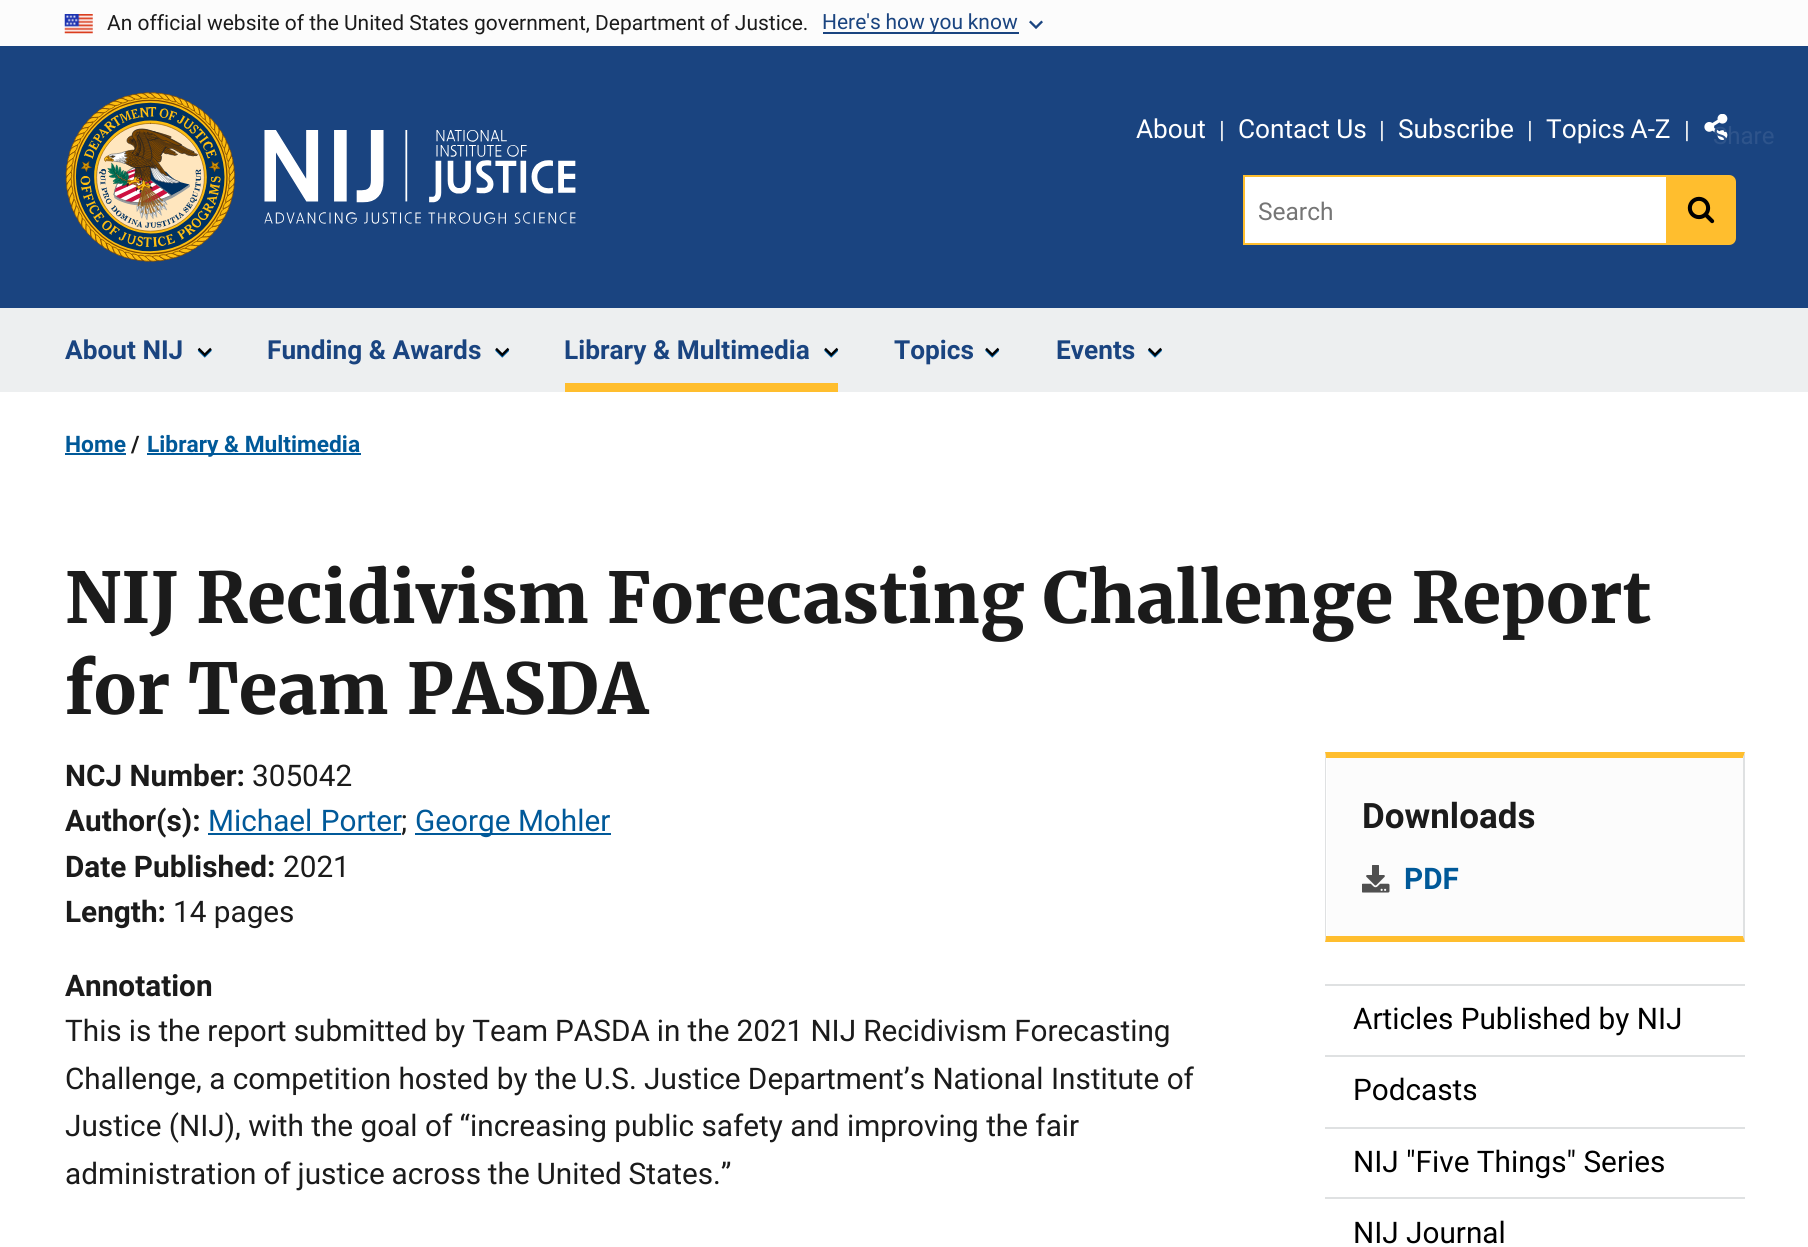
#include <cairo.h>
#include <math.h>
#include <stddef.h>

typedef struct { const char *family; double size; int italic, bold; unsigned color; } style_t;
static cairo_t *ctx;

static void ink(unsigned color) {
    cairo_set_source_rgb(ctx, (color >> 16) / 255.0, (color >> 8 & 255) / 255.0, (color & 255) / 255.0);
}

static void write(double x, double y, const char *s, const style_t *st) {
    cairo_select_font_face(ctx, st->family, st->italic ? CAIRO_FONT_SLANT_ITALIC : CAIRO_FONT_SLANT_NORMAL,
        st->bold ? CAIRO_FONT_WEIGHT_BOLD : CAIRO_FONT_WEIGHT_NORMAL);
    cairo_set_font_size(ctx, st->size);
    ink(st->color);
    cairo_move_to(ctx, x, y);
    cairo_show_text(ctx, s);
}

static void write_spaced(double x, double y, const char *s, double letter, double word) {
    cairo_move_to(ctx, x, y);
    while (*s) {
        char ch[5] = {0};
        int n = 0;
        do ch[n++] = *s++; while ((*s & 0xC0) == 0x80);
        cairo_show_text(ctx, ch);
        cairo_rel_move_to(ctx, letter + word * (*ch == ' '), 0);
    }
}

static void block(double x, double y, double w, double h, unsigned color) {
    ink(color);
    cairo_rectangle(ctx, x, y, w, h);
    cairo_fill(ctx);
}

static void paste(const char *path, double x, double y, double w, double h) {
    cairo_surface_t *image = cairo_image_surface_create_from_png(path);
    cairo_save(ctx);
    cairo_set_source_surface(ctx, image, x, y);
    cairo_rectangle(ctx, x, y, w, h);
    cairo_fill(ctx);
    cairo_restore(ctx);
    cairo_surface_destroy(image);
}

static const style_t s1 = {"Roboto", 21, 0, 0, 0x1b1b1b};
static const style_t s2 = {"Roboto", 26.25, 0, 0, 0xffffff};
static const style_t s3 = {"Roboto", 24, 0, 0, 0xedeff0};
static const style_t s4 = {"Roboto", 24, 0, 0, 0x2e548b};
static const style_t s5 = {"Roboto", 24.5, 0, 0, 0x757575};
static const style_t s6 = {"Roboto", 26.25, 0, 1, 0x1a4480};
static const style_t s7 = {"Roboto", 22.75, 0, 1, 0x005999};
static const style_t s8 = {"Roboto", 22.75, 0, 1, 0x1b1b1b};
static const style_t s9 = {"Merriweather", 70, 0, 1, 0x1b1b1b};
static const style_t s10 = {"Roboto", 29.75, 0, 1, 0x1b1b1b};
static const style_t s11 = {"Roboto", 29.75, 0, 0, 0x1b1b1b};
static const style_t s12 = {"Roboto", 29.75, 0, 0, 0x005999};
static const style_t s13 = {"Roboto", 35, 0, 1, 0x1b1b1b};
static const style_t s14 = {"Roboto", 29.75, 0, 1, 0x005999};
static const style_t s15 = {"Roboto", 29.75, 0, 0, 0x000000};

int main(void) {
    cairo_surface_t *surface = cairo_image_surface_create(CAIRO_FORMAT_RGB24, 1808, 1247);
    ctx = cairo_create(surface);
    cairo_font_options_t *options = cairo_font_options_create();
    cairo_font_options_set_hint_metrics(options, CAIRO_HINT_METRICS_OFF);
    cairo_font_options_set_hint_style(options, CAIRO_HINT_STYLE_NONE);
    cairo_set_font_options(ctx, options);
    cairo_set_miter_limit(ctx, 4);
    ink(0xffffff);
    cairo_paint(ctx);
    block(0, 0, 1808, 46, 0xfcfcfc);
    paste("pic1.png", 64, 14, 29, 20);
    write(107, 30, "An official website of the United States government, Department of Justice.", &s1);
    block(823, 32, 196, 2, 0x1a4480);
    write_spaced(822, 29, "Here's how you know", 0, -0.5);
    paste("pic2.png", 1029, 20, 14, 9);
    block(0, 46, 1808, 262, 0x1a4480);
    paste("pic3.png", 65, 92, 171, 170);
    paste("pic4.png", 264, 130, 312, 94);
    block(0, 308, 1808, 84, 0xedeff0);
    write(1136, 138, "About", &s2);
    write(1219, 138, "|", &s3);
    write(1238, 138, "Contact Us", &s2);
    write(1379, 138, "|", &s3);
    write(1398, 138, "Subscribe", &s2);
    write(1527, 138, "|", &s3);
    cairo_set_font_size(ctx, 26.25);
    ink(0xffffff);
    write_spaced(1546, 138, "Topics A-Z", 0, -1);
    write(1684, 138, "|", &s3);
    paste("pic5.png", 1704, 114, 24, 26);
    write(1713, 144, "Share", &s4);
    block(1245, 177, 421, 66, 0xffffff);
    block(1243, 175, 423, 2, 0xffbe2e);
    block(1243, 243, 423, 2, 0xffbe2e);
    block(1243, 175, 2, 70, 0xffbe2e);
    write(1258, 220, "Search", &s5);
    ink(0xffbe2e);
    cairo_new_path(ctx);
    cairo_move_to(ctx, 1666, 175);
    cairo_line_to(ctx, 1729, 175);
    cairo_curve_to(ctx, 1733, 175, 1736, 178, 1736, 182);
    cairo_line_to(ctx, 1736, 238);
    cairo_curve_to(ctx, 1736, 242, 1733, 245, 1729, 245);
    cairo_line_to(ctx, 1666, 245);
    cairo_close_path(ctx);
    cairo_fill(ctx);
    paste("pic6.png", 1687, 196, 28, 28);
    paste("pic7.png", 198, 349, 14, 9);
    write(65, 359, "About NIJ", &s6);
    paste("pic8.png", 197, 347, 15, 10);
    paste("pic9.png", 495, 349, 14, 9);
    write(267, 359, "Funding & Awards", &s6);
    paste("pic10.png", 495, 347, 15, 10);
    paste("pic9.png", 824, 349, 14, 9);
    write(564, 359, "Library & Multimedia", &s6);
    paste("pic10.png", 824, 347, 15, 10);
    block(565, 383, 273, 9, 0xffbe2e);
    paste("pic9.png", 985, 349, 14, 9);
    write(894, 359, "Topics", &s6);
    paste("pic10.png", 985, 347, 15, 10);
    paste("pic11.png", 1148, 349, 14, 9);
    write(1056, 359, "Events", &s6);
    paste("pic12.png", 1148, 347, 14, 10);
    write(65, 452, "Home", &s7);
    block(65, 453, 61, 2, 0x005999);
    write(131, 452, "/", &s8);
    block(147, 453, 214, 2, 0x005999);
    write(147, 452, "Library & Multimedia", &s7);
    write(65, 623, "NIJ Recidivism Forecasting Challenge Report", &s9);
    write(65, 714, "for Team PASDA", &s9);
    write(65, 786, "NCJ Number:", &s10);
    write(252, 786, "305042", &s11);
    write(65, 831, "Author(s):", &s10);
    cairo_select_font_face(ctx, "Roboto", CAIRO_FONT_SLANT_NORMAL, CAIRO_FONT_WEIGHT_NORMAL);
    ink(0x005999);
    write_spaced(208, 831, "Michael Porter", 0, 1);
    block(208, 833, 193, 2, 0x005999);
    write(401, 831, ";", &s11);
    block(415, 833, 196, 2, 0x005999);
    write(415, 831, "George Mohler", &s12);
    write(65, 877, "Date Published:", &s10);
    write(283, 877, "2021", &s11);
    write(65, 922, "Length:", &s10);
    write(173, 922, "14 pages", &s11);
    write(65, 996, "Annotation", &s10);
    cairo_select_font_face(ctx, "Roboto", CAIRO_FONT_SLANT_NORMAL, CAIRO_FONT_WEIGHT_NORMAL);
    write_spaced(65, 1041, "This is the report submitted by Team PASDA in the 2021 NIJ Recidivism Forecasting", 0, -0.3);
    write(65, 1089, "Challenge, a competition hosted by the U.S. Justice Department’s National Institute of", &s11);
    write(65, 1136, "Justice (NIJ), with the goal of “increasing public safety and improving the fair", &s11);
    write_spaced(65, 1184, "administration of justice across the United States.”", 0, -0.5);
    block(1327, 758, 416, 178, 0xfcfcfc);
    ink(0xffbe2e);
    cairo_new_path(ctx);
    cairo_move_to(ctx, 1325, 752);
    cairo_line_to(ctx, 1745, 752);
    cairo_line_to(ctx, 1743, 758);
    cairo_line_to(ctx, 1326, 758);
    cairo_close_path(ctx);
    cairo_fill(ctx);
    ink(0xdfe1e2);
    cairo_new_path(ctx);
    cairo_move_to(ctx, 1745, 752);
    cairo_line_to(ctx, 1745, 942);
    cairo_line_to(ctx, 1743, 936);
    cairo_line_to(ctx, 1743, 758);
    cairo_close_path(ctx);
    cairo_fill(ctx);
    ink(0xffbe2e);
    cairo_new_path(ctx);
    cairo_move_to(ctx, 1745, 942);
    cairo_line_to(ctx, 1325, 942);
    cairo_line_to(ctx, 1326, 936);
    cairo_line_to(ctx, 1743, 936);
    cairo_close_path(ctx);
    cairo_fill(ctx);
    ink(0xdfe1e2);
    cairo_new_path(ctx);
    cairo_move_to(ctx, 1325, 942);
    cairo_line_to(ctx, 1325, 752);
    cairo_line_to(ctx, 1326, 758);
    cairo_line_to(ctx, 1326, 936);
    cairo_close_path(ctx);
    cairo_fill(ctx);
    write(1362, 828, "Downloads", &s13);
    paste("pic13.png", 1362, 865, 28, 28);
    write(1404, 889, "PDF", &s14);
    block(1325, 984, 420, 2, 0xdfe1e2);
    write(1353, 1029, "Articles Published by NIJ", &s15);
    block(1325, 1055, 420, 2, 0xdfe1e2);
    write(1353, 1100, "Podcasts", &s15);
    block(1325, 1127, 420, 2, 0xdfe1e2);
    write(1353, 1172, "NIJ \"Five Things\" Series", &s15);
    block(1325, 1197, 420, 2, 0xdfe1e2);
    write(1353, 1243, "NIJ Journal", &s15);
    cairo_surface_write_to_png(surface, "screenshot.png");
    cairo_font_options_destroy(options);
    cairo_destroy(ctx);
    cairo_surface_destroy(surface);
    return 0;
}
